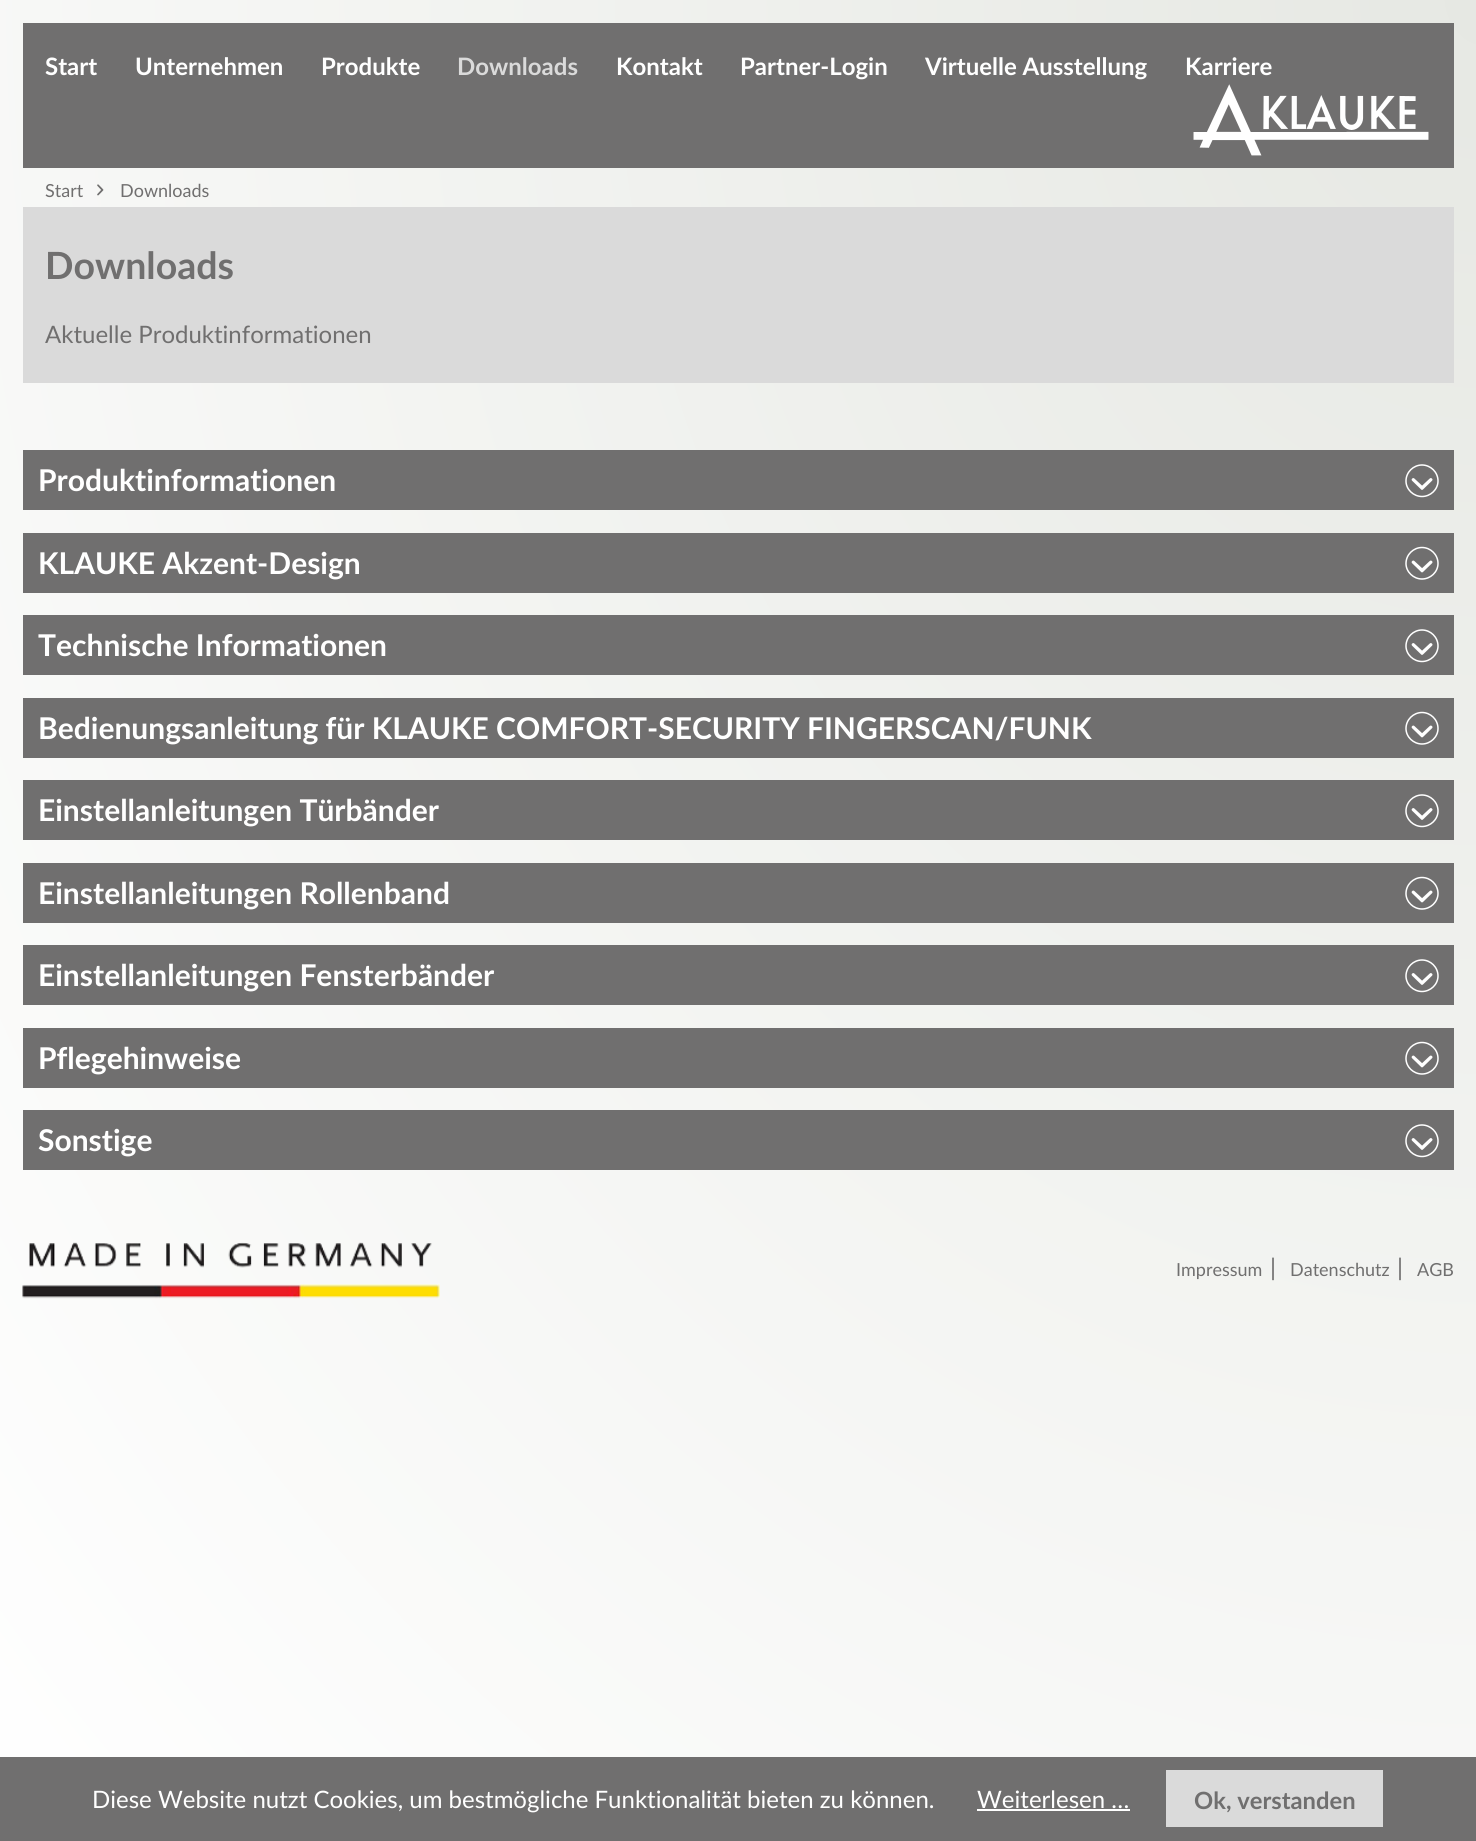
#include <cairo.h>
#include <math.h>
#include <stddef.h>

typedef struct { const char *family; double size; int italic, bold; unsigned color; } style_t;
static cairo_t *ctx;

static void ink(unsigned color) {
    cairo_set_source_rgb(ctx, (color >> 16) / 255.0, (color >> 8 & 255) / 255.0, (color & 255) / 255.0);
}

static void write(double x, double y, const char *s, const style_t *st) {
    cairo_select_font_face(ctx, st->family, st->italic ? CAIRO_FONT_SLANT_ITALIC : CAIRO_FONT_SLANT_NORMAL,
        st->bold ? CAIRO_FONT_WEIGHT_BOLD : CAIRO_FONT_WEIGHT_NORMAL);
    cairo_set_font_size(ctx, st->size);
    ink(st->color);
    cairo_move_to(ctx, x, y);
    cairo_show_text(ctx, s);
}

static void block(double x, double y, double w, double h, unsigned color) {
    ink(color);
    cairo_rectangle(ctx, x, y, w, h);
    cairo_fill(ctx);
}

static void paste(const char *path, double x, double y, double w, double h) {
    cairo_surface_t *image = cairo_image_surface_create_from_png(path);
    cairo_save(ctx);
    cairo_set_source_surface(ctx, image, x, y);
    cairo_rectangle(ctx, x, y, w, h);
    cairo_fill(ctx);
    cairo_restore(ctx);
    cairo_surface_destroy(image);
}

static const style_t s1 = {"Lato", 24, 0, 1, 0xffffff};
static const style_t s2 = {"Lato", 24, 0, 1, 0xdadada};
static const style_t s3 = {"Lato", 18, 0, 0, 0x706f6f};
static const style_t s4 = {"Lato", 37.5, 0, 1, 0x706f6f};
static const style_t s5 = {"Lato", 24, 0, 0, 0x706f6f};
static const style_t s6 = {"Lato", 30, 0, 1, 0xffffff};
static const style_t s7 = {"Lato", 24, 0, 0, 0xffffff};
static const style_t s8 = {"Lato", 23.75, 0, 1, 0x706f6f};

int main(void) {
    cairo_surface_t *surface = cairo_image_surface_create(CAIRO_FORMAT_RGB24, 1476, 1841);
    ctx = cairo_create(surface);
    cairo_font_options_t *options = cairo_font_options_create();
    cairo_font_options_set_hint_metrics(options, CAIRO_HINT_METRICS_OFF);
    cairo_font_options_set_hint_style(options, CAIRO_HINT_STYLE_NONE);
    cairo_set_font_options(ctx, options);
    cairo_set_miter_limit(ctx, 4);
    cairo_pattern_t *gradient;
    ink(0xffffff);
    cairo_paint(ctx);
    gradient = cairo_pattern_create_radial(0, 0, 0, 0, 0, 1);
    cairo_pattern_set_matrix(gradient, &(cairo_matrix_t){1.0 / 2087, 0, 0, 1.0 / 2605, -1.0 * 1476 / 2087, -1.0 * 0 / 2605});
    cairo_pattern_add_color_stop_rgba(gradient, 0, 0.902, 0.91, 0.89, 1);
    cairo_pattern_add_color_stop_rgba(gradient, 1, 1, 1, 1, 1);
    cairo_set_source(ctx, gradient);
    cairo_pattern_destroy(gradient);
    cairo_rectangle(ctx, 0, 0, 1476, 1757);
    cairo_fill(ctx);
    block(23, 23, 1431, 145, 0x706f6f);
    write(45, 75, "Start", &s1);
    write(135, 75, "Unternehmen", &s1);
    write(321, 75, "Produkte", &s1);
    write(457, 75, "Downloads", &s2);
    write(616, 75, "Kontakt", &s1);
    write(740, 75, "Partner-Login", &s1);
    write(925, 75, "Virtuelle Ausstellung", &s1);
    write(1185, 75, "Karriere", &s1);
    paste("pic1.png", 1193, 84, 236, 72);
    write(45, 197, "Start", &s3);
    paste("pic2.png", 97, 184, 7, 12);
    write(120, 197, "Downloads", &s3);
    block(23, 207, 1431, 176, 0xdadada);
    write(45, 279, "Downloads", &s4);
    write(45, 343, "Aktuelle Produktinformationen", &s5);
    block(23, 450, 1431, 60, 0x706f6f);
    write(38, 491, "Produktinformationen", &s6);
    cairo_new_path(ctx);
    cairo_move_to(ctx, 1422, 496.5);
    cairo_curve_to(ctx, 1413.5, 496.5, 1406, 489.5, 1406, 481);
    cairo_curve_to(ctx, 1406, 472, 1413.5, 465, 1422, 465);
    cairo_curve_to(ctx, 1430.5, 465, 1438, 472, 1438, 481);
    cairo_curve_to(ctx, 1438, 489.5, 1430.5, 496.5, 1422, 496.5);
    cairo_close_path(ctx);
    cairo_set_line_width(ctx, 1.5);
    cairo_stroke(ctx);
    paste("pic3.png", 1411, 478, 22, 12);
    block(23, 533, 1431, 60, 0x706f6f);
    write(38, 574, "KLAUKE Akzent-Design", &s6);
    cairo_new_path(ctx);
    cairo_move_to(ctx, 1422, 579);
    cairo_curve_to(ctx, 1413.5, 579, 1406, 572, 1406, 563.5);
    cairo_curve_to(ctx, 1406, 554.5, 1413.5, 547.5, 1422, 547.5);
    cairo_curve_to(ctx, 1430.5, 547.5, 1438, 554.5, 1438, 563.5);
    cairo_curve_to(ctx, 1438, 572, 1430.5, 579, 1422, 579);
    cairo_close_path(ctx);
    cairo_stroke(ctx);
    paste("pic4.png", 1411, 560, 22, 13);
    block(23, 615, 1431, 60, 0x706f6f);
    write(38, 656, "Technische Informationen", &s6);
    cairo_new_path(ctx);
    cairo_move_to(ctx, 1422, 661.5);
    cairo_curve_to(ctx, 1413.5, 661.5, 1406, 654.5, 1406, 646);
    cairo_curve_to(ctx, 1406, 637, 1413.5, 630, 1422, 630);
    cairo_curve_to(ctx, 1430.5, 630, 1438, 637, 1438, 646);
    cairo_curve_to(ctx, 1438, 654.5, 1430.5, 661.5, 1422, 661.5);
    cairo_close_path(ctx);
    cairo_stroke(ctx);
    paste("pic3.png", 1411, 643, 22, 12);
    block(23, 698, 1431, 60, 0x706f6f);
    write(38, 739, "Bedienungsanleitung für KLAUKE COMFORT-SECURITY FINGERSCAN/FUNK", &s6);
    cairo_new_path(ctx);
    cairo_move_to(ctx, 1422, 744);
    cairo_curve_to(ctx, 1413.5, 744, 1406, 737, 1406, 728.5);
    cairo_curve_to(ctx, 1406, 719.5, 1413.5, 712.5, 1422, 712.5);
    cairo_curve_to(ctx, 1430.5, 712.5, 1438, 719.5, 1438, 728.5);
    cairo_curve_to(ctx, 1438, 737, 1430.5, 744, 1422, 744);
    cairo_close_path(ctx);
    cairo_stroke(ctx);
    paste("pic4.png", 1411, 725, 22, 13);
    block(23, 780, 1431, 60, 0x706f6f);
    write(38, 821, "Einstellanleitungen Türbänder", &s6);
    cairo_new_path(ctx);
    cairo_move_to(ctx, 1422, 826.5);
    cairo_curve_to(ctx, 1413.5, 826.5, 1406, 819.5, 1406, 811);
    cairo_curve_to(ctx, 1406, 802, 1413.5, 795, 1422, 795);
    cairo_curve_to(ctx, 1430.5, 795, 1438, 802, 1438, 811);
    cairo_curve_to(ctx, 1438, 819.5, 1430.5, 826.5, 1422, 826.5);
    cairo_close_path(ctx);
    cairo_stroke(ctx);
    paste("pic3.png", 1411, 808, 22, 12);
    block(23, 863, 1431, 60, 0x706f6f);
    write(38, 904, "Einstellanleitungen Rollenband", &s6);
    cairo_new_path(ctx);
    cairo_move_to(ctx, 1422, 909);
    cairo_curve_to(ctx, 1413.5, 909, 1406, 902, 1406, 893.5);
    cairo_curve_to(ctx, 1406, 884.5, 1413.5, 877.5, 1422, 877.5);
    cairo_curve_to(ctx, 1430.5, 877.5, 1438, 884.5, 1438, 893.5);
    cairo_curve_to(ctx, 1438, 902, 1430.5, 909, 1422, 909);
    cairo_close_path(ctx);
    cairo_stroke(ctx);
    paste("pic4.png", 1411, 890, 22, 13);
    block(23, 945, 1431, 60, 0x706f6f);
    write(38, 986, "Einstellanleitungen Fensterbänder", &s6);
    cairo_new_path(ctx);
    cairo_move_to(ctx, 1422, 991.5);
    cairo_curve_to(ctx, 1413.5, 991.5, 1406, 984.5, 1406, 976);
    cairo_curve_to(ctx, 1406, 967, 1413.5, 960, 1422, 960);
    cairo_curve_to(ctx, 1430.5, 960, 1438, 967, 1438, 976);
    cairo_curve_to(ctx, 1438, 984.5, 1430.5, 991.5, 1422, 991.5);
    cairo_close_path(ctx);
    cairo_stroke(ctx);
    paste("pic3.png", 1411, 973, 22, 12);
    block(23, 1028, 1431, 60, 0x706f6f);
    write(38, 1069, "Pflegehinweise", &s6);
    cairo_new_path(ctx);
    cairo_move_to(ctx, 1422, 1074);
    cairo_curve_to(ctx, 1413.5, 1074, 1406, 1067, 1406, 1058.5);
    cairo_curve_to(ctx, 1406, 1049.5, 1413.5, 1042.5, 1422, 1042.5);
    cairo_curve_to(ctx, 1430.5, 1042.5, 1438, 1049.5, 1438, 1058.5);
    cairo_curve_to(ctx, 1438, 1067, 1430.5, 1074, 1422, 1074);
    cairo_close_path(ctx);
    cairo_stroke(ctx);
    paste("pic4.png", 1411, 1055, 22, 13);
    block(23, 1110, 1431, 60, 0x706f6f);
    write(38, 1151, "Sonstige", &s6);
    cairo_new_path(ctx);
    cairo_move_to(ctx, 1422, 1156.5);
    cairo_curve_to(ctx, 1413.5, 1156.5, 1406, 1149.5, 1406, 1141);
    cairo_curve_to(ctx, 1406, 1132, 1413.5, 1125, 1422, 1125);
    cairo_curve_to(ctx, 1430.5, 1125, 1438, 1132, 1438, 1141);
    cairo_curve_to(ctx, 1438, 1149.5, 1430.5, 1156.5, 1422, 1156.5);
    cairo_close_path(ctx);
    cairo_stroke(ctx);
    paste("pic3.png", 1411, 1138, 22, 12);
    paste("pic5.png", 22, 1242, 418, 57);
    write(1176, 1276, "Impressum", &s3);
    write(1270, 1276, "|", &s5);
    write(1290, 1276, "Datenschutz", &s3);
    write(1397, 1276, "|", &s5);
    write(1417, 1276, "AGB", &s3);
    block(0, 1757, 1476, 84, 0x706f6f);
    write(92, 1808, "Diese Website nutzt Cookies, um bestmögliche Funktionalität bieten zu können.", &s7);
    write(977, 1808, "Weiterlesen …", &s7);
    block(977, 1809, 153, 2, 0xffffff);
    block(1166, 1770, 217, 57, 0xdadada);
    write(1194, 1809, "Ok, verstanden", &s8);
    cairo_surface_write_to_png(surface, "screenshot.png");
    cairo_font_options_destroy(options);
    cairo_destroy(ctx);
    cairo_surface_destroy(surface);
    return 0;
}
